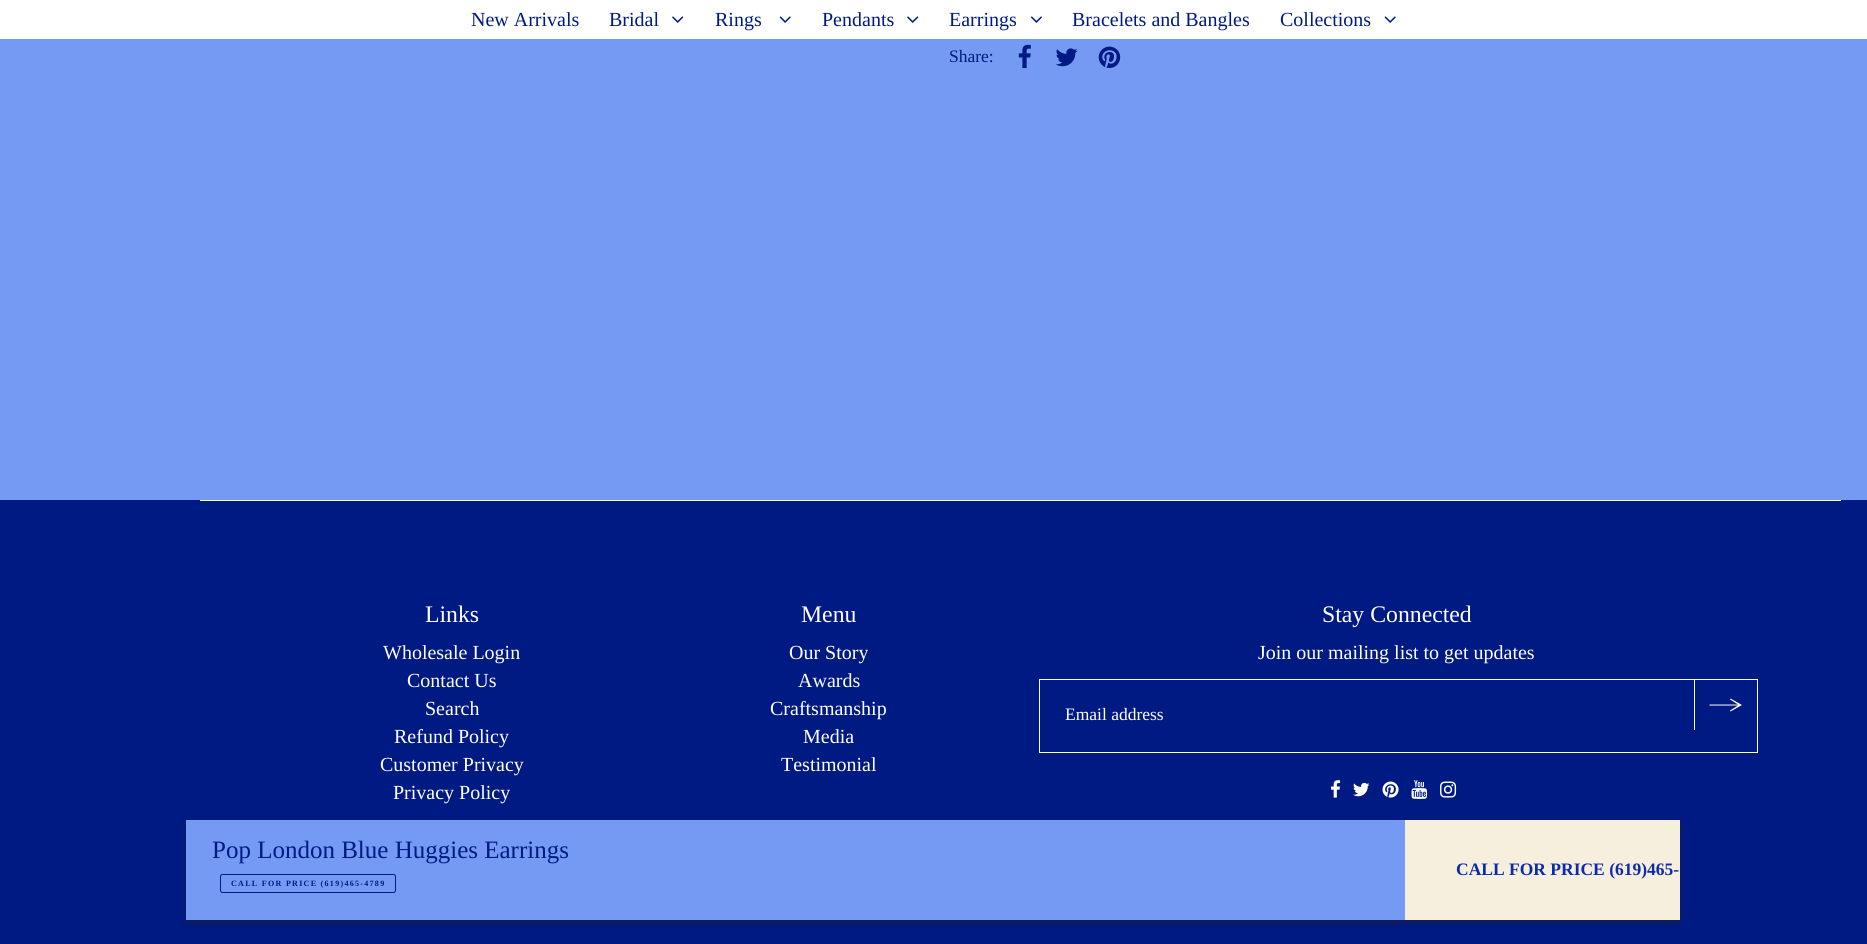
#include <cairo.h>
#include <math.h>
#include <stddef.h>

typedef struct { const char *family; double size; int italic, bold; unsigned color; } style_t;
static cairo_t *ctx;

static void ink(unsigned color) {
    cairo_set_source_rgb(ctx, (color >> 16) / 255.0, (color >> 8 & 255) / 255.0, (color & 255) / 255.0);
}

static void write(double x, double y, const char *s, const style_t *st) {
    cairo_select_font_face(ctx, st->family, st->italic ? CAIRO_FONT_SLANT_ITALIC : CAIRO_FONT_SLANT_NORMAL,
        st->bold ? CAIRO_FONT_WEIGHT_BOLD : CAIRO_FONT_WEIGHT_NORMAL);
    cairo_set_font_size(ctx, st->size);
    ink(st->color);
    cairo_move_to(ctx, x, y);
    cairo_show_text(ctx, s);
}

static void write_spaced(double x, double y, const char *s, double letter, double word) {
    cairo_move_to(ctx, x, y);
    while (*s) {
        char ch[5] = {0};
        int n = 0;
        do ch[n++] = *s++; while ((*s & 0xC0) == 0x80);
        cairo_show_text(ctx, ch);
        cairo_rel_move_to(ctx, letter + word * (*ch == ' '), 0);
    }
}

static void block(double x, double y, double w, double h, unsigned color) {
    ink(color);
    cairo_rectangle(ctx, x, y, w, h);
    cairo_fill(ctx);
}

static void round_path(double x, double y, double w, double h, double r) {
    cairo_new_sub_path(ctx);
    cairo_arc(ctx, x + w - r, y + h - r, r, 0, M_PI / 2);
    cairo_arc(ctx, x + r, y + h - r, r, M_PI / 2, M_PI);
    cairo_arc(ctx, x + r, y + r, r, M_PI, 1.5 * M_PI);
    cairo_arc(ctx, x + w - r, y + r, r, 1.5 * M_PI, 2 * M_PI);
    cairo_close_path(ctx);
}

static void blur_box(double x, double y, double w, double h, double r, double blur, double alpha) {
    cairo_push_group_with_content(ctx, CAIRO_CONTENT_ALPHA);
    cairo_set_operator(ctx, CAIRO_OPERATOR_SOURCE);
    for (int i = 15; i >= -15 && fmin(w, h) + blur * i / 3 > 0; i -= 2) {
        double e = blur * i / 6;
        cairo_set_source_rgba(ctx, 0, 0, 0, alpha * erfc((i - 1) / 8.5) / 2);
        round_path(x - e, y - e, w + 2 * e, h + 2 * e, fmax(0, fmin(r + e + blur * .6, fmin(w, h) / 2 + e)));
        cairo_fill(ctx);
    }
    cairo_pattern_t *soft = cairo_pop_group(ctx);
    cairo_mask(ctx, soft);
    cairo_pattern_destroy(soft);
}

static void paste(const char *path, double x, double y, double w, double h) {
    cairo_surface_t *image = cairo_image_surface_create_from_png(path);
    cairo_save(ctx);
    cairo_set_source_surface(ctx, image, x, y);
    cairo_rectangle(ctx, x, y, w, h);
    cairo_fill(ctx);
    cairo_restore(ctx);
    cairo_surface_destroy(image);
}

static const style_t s1 = {"Liberation Serif", 20, 0, 0, 0x001a83};
static const style_t s2 = {"Liberation Serif", 17.5, 0, 0, 0x001a83};
static const style_t s3 = {"Liberation Serif", 25, 0, 0, 0x001a83};
static const style_t s4 = {"Liberation Serif", 17.5, 0, 1, 0x0b2aac};
static const style_t s5 = {"Liberation Serif", 23.75, 0, 0, 0xffffff};
static const style_t s6 = {"Liberation Serif", 20, 0, 0, 0xffffff};
static const style_t s7 = {"Liberation Serif", 17.5, 0, 0, 0xffffff};

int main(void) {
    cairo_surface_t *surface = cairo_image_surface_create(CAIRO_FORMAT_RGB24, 1867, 944);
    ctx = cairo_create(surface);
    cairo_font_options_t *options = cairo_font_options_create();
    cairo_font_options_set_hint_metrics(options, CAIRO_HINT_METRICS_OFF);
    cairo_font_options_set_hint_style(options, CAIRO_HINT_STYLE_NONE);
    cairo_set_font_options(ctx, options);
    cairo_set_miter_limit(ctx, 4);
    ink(0x759af4);
    cairo_paint(ctx);
    block(0, 0, 1867, 39, 0xffffff);
    write(471, 26, "New Arrivals", &s1);
    write(609, 26, "Bridal", &s1);
    paste("pic1.png", 672, 16, 12, 7);
    write(715, 26, "Rings", &s1);
    paste("pic2.png", 779, 16, 12, 7);
    write(822, 26, "Pendants", &s1);
    paste("pic1.png", 907, 16, 12, 7);
    write(949, 26, "Earrings", &s1);
    paste("pic3.png", 1030, 16, 12, 7);
    write(1072, 26, "Bracelets and Bangles", &s1);
    write(1280, 26, "Collections", &s1);
    paste("pic2.png", 1384, 16, 12, 7);
    write(949, 62, "Share:", &s2);
    paste("pic4.png", 1018, 44, 13, 25);
    paste("pic5.png", 1055, 48, 23, 19);
    paste("pic6.png", 1098, 46, 23, 22);
    block(0, 500, 1867, 444, 0x001a83);
    ink(0x222222);
    blur_box(186, 823, 1494, 100, 0, 2.5, 0.5);
    block(186, 820, 1219, 100, 0x759af4);
    write(212, 858, "Pop London Blue Huggies Earrings", &s3);
    round_path(220.5, 874.5, 175, 18, 2);
    cairo_set_line_width(ctx, 1);
    cairo_stroke(ctx);
    cairo_select_font_face(ctx, "Liberation Serif", CAIRO_FONT_SLANT_NORMAL, CAIRO_FONT_WEIGHT_BOLD);
    cairo_set_font_size(ctx, 8.1);
    write_spaced(231, 886, "CALL FOR PRICE (619)465-4789", 1.25, 0);
    block(1405, 820, 275, 100, 0xf7efdd);
    write(1456, 875, "CALL FOR PRICE (619)465-", &s4);
    block(200, 500, 1641, 1, 0xfafafa);
    write(425, 622, "Links", &s5);
    write(383, 659, "Wholesale Login", &s6);
    write(407, 687, "Contact Us", &s6);
    write(425, 715, "Search", &s6);
    write(394, 743, "Refund Policy", &s6);
    write(380, 771, "Customer Privacy", &s6);
    write(393, 799, "Privacy Policy", &s6);
    write(801, 622, "Menu", &s5);
    write(789, 659, "Our Story", &s6);
    write(798, 687, "Awards", &s6);
    write(770, 715, "Craftsmanship", &s6);
    write(803, 743, "Media", &s6);
    write(781, 771, "Testimonial", &s6);
    write(1322, 622, "Stay Connected", &s5);
    write(1258, 659, "Join our mailing list to get updates", &s6);
    cairo_rectangle(ctx, 1039.5, 679.5, 718, 73);
    ink(0xfafafa);
    cairo_stroke(ctx);
    write(1065, 720, "Email address", &s7);
    block(1694, 680, 1, 50, 0xfafafa);
    cairo_new_path(ctx);
    cairo_move_to(ctx, 1730.5, 698.5);
    cairo_line_to(ctx, 1742, 705);
    cairo_line_to(ctx, 1730.5, 711.5);
    cairo_line_to(ctx, 1730, 710.5);
    cairo_line_to(ctx, 1738, 705.5);
    cairo_line_to(ctx, 1709.5, 705.5);
    cairo_line_to(ctx, 1709.5, 704.5);
    cairo_line_to(ctx, 1738, 704.5);
    cairo_line_to(ctx, 1730, 699.5);
    cairo_close_path(ctx);
    cairo_fill(ctx);
    paste("pic7.png", 1331, 780, 10, 18);
    paste("pic8.png", 1353, 782, 17, 15);
    paste("pic9.png", 1382, 781, 17, 17);
    paste("pic10.png", 1411, 780, 17, 19);
    paste("pic11.png", 1440, 781, 17, 17);
    cairo_surface_write_to_png(surface, "screenshot.png");
    cairo_font_options_destroy(options);
    cairo_destroy(ctx);
    cairo_surface_destroy(surface);
    return 0;
}
